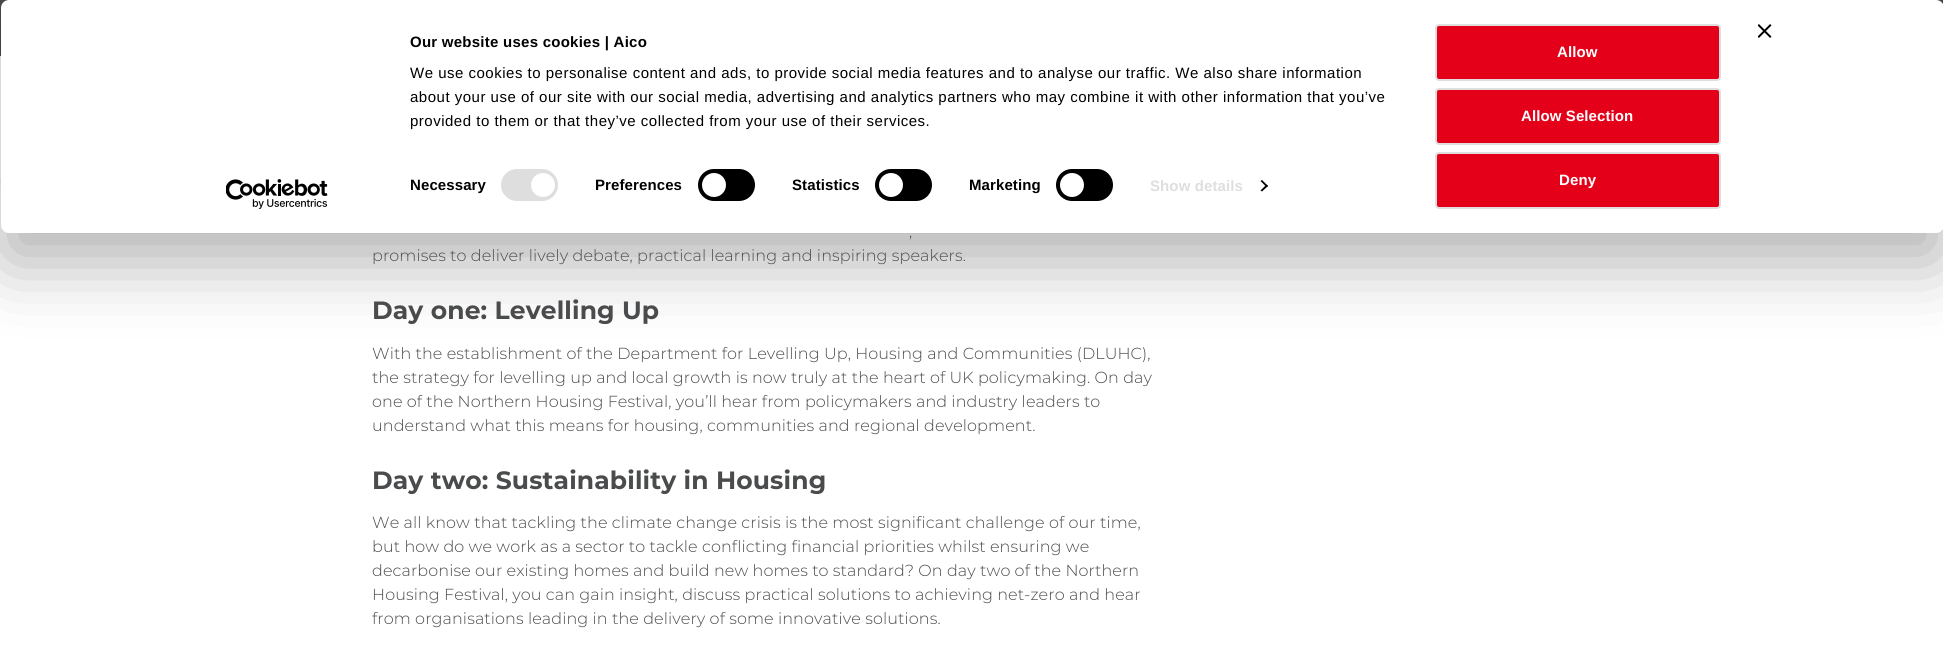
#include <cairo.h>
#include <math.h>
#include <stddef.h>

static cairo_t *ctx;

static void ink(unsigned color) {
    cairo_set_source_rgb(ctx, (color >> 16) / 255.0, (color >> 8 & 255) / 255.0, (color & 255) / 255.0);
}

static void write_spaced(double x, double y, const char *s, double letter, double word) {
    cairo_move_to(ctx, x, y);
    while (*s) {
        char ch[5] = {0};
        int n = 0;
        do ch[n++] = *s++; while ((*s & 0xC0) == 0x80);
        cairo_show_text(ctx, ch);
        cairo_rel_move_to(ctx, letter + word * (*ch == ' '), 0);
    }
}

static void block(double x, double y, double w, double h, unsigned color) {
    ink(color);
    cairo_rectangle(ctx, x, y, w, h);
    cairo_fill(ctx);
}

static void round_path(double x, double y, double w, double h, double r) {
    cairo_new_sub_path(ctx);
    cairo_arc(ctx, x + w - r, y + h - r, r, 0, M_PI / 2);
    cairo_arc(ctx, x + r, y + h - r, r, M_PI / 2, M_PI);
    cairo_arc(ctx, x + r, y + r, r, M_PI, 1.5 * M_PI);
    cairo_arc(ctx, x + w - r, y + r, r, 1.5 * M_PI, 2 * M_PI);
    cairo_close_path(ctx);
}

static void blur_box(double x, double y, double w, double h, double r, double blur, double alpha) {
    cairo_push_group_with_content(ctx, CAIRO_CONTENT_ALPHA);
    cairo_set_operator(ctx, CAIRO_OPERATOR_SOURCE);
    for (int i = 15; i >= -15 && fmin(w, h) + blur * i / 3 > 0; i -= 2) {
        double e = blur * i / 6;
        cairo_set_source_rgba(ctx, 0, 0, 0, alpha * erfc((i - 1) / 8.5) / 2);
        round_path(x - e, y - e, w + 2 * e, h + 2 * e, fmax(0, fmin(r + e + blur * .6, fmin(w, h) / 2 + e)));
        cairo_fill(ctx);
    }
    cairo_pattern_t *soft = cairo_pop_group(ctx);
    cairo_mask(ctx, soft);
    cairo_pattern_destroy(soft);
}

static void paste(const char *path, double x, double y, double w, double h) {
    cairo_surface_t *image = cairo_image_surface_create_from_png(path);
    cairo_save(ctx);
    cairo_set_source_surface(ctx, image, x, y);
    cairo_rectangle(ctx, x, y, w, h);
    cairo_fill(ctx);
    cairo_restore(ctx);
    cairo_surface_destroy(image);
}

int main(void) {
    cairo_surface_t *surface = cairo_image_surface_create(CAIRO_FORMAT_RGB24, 1943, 656);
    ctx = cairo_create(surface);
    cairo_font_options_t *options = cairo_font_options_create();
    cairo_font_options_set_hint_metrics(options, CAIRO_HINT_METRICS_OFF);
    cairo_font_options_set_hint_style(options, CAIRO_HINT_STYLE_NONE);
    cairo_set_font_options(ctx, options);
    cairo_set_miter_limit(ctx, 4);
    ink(0xffffff);
    cairo_paint(ctx);
    ink(0x000000);
    blur_box(0, 2, 1943, 179, 0, 5, 0.1);
    block(0, 56, 1, 123, 0xffffff);
    block(0, 0, 1943, 56, 0x4a4b4c);
    ink(0x000000);
    blur_box(1, 30, 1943, 233, 8, 35, 0.3);
    ink(0xffffff);
    round_path(1, 0, 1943, 233, 8);
    cairo_fill(ctx);
    paste("pic1.png", 1758, 24, 14, 14);
    cairo_select_font_face(ctx, "Liberation Sans", CAIRO_FONT_SLANT_NORMAL, CAIRO_FONT_WEIGHT_BOLD);
    cairo_set_font_size(ctx, 15);
    ink(0x000000);
    write_spaced(410, 47, "Our website uses cookies | Aico", 0.25, 0);
    cairo_select_font_face(ctx, "Liberation Sans", CAIRO_FONT_SLANT_NORMAL, CAIRO_FONT_WEIGHT_NORMAL);
    write_spaced(410, 78, "We use cookies to personalise content and ads, to provide social media features and to analyse our traffic. We also share information", 0.5, 0);
    write_spaced(410, 102, "about your use of our site with our social media, advertising and analytics partners who may combine it with other information that you’ve", 0.5, 0);
    write_spaced(410, 126, "provided to them or that they’ve collected from your use of their services.", 0.5, 0);
    cairo_select_font_face(ctx, "Liberation Sans", CAIRO_FONT_SLANT_NORMAL, CAIRO_FONT_WEIGHT_BOLD);
    write_spaced(410, 190, "Necessary", 0.1, 0);
    ink(0xdedede);
    round_path(501, 169, 57, 32, 16);
    cairo_fill(ctx);
    ink(0xffffff);
    cairo_arc(ctx, 543, 185, 12, 0, 2 * M_PI);
    cairo_fill(ctx);
    ink(0x000000);
    write_spaced(595, 190, "Preferences", 0.1, 0);
    round_path(698, 169, 57, 32, 16);
    cairo_fill(ctx);
    ink(0xffffff);
    cairo_arc(ctx, 714, 185, 12, 0, 2 * M_PI);
    cairo_fill(ctx);
    ink(0x000000);
    write_spaced(792, 190, "Statistics", 0.1, 0);
    round_path(875, 169, 57, 32, 16);
    cairo_fill(ctx);
    ink(0xffffff);
    cairo_arc(ctx, 891, 185, 12, 0, 2 * M_PI);
    cairo_fill(ctx);
    ink(0x000000);
    write_spaced(969, 190, "Marketing", 0.1, 0);
    round_path(1056, 169, 57, 32, 16);
    cairo_fill(ctx);
    ink(0xffffff);
    cairo_arc(ctx, 1072, 185, 12, 0, 2 * M_PI);
    cairo_fill(ctx);
    ink(0xdedede);
    write_spaced(1150, 191, "Show details", 0.1, 0);
    ink(0x000000);
    cairo_new_path(ctx);
    cairo_move_to(ctx, 1262, 180);
    cairo_line_to(ctx, 1268, 186);
    cairo_line_to(ctx, 1266.5, 187);
    cairo_line_to(ctx, 1260.5, 181);
    cairo_close_path(ctx);
    cairo_fill(ctx);
    cairo_new_path(ctx);
    cairo_move_to(ctx, 1266.5, 184.5);
    cairo_line_to(ctx, 1268, 186);
    cairo_line_to(ctx, 1262, 191.5);
    cairo_line_to(ctx, 1260.5, 190.5);
    cairo_close_path(ctx);
    cairo_fill(ctx);
    ink(0xe50019);
    round_path(1436, 25, 284, 55, 3);
    cairo_fill_preserve(ctx);
    ink(0xdedede);
    cairo_stroke(ctx);
    ink(0xffffff);
    write_spaced(1557, 57, "Allow", 0.1, 0);
    ink(0xe50019);
    round_path(1436, 89, 284, 55, 3);
    cairo_fill_preserve(ctx);
    ink(0xdedede);
    cairo_stroke(ctx);
    ink(0xffffff);
    write_spaced(1521, 121, "Allow Selection", 0.1, 0);
    ink(0xe50019);
    round_path(1436, 153, 284, 55, 3);
    cairo_fill_preserve(ctx);
    ink(0xdedede);
    cairo_stroke(ctx);
    ink(0xffffff);
    write_spaced(1559, 185, "Deny", 0.1, 0);
    paste("pic2.png", 226, 179, 102, 30);
    cairo_select_font_face(ctx, "Montserrat Light", CAIRO_FONT_SLANT_NORMAL, CAIRO_FONT_WEIGHT_NORMAL);
    cairo_set_font_size(ctx, 16);
    ink(0x4a4b4c);
    write_spaced(909, 237, ",", 0.1, 0);
    write_spaced(372, 261, "promises to deliver lively debate, practical learning and inspiring speakers.", 0.1, 0);
    cairo_select_font_face(ctx, "Montserrat", CAIRO_FONT_SLANT_NORMAL, CAIRO_FONT_WEIGHT_BOLD);
    cairo_set_font_size(ctx, 25);
    write_spaced(372, 319, "Day one: Levelling Up", 0.15, 0);
    cairo_select_font_face(ctx, "Montserrat Light", CAIRO_FONT_SLANT_NORMAL, CAIRO_FONT_WEIGHT_NORMAL);
    cairo_set_font_size(ctx, 16);
    write_spaced(372, 359, "With the establishment of the Department for Levelling Up, Housing and Communities (DLUHC),", 0.1, 0);
    write_spaced(372, 383, "the strategy for levelling up and local growth is now truly at the heart of UK policymaking. On day", 0.1, 0);
    write_spaced(372, 407, "one of the Northern Housing Festival, you’ll hear from policymakers and industry leaders to", 0.1, 0);
    write_spaced(372, 431, "understand what this means for housing, communities and regional development.", 0.1, 0);
    cairo_select_font_face(ctx, "Montserrat", CAIRO_FONT_SLANT_NORMAL, CAIRO_FONT_WEIGHT_BOLD);
    cairo_set_font_size(ctx, 25);
    write_spaced(372, 489, "Day two: Sustainability in Housing", 0.15, 0);
    cairo_select_font_face(ctx, "Montserrat Light", CAIRO_FONT_SLANT_NORMAL, CAIRO_FONT_WEIGHT_NORMAL);
    cairo_set_font_size(ctx, 16);
    write_spaced(372, 528, "We all know that tackling the climate change crisis is the most significant challenge of our time,", 0.1, 0);
    write_spaced(372, 552, "but how do we work as a sector to tackle conflicting financial priorities whilst ensuring we", 0.1, 0);
    write_spaced(372, 576, "decarbonise our existing homes and build new homes to standard? On day two of the Northern", 0.1, 0);
    write_spaced(372, 600, "Housing Festival, you can gain insight, discuss practical solutions to achieving net-zero and hear", 0.1, 0);
    write_spaced(372, 624, "from organisations leading in the delivery of some innovative solutions.", 0.1, 0);
    cairo_surface_write_to_png(surface, "screenshot.png");
    cairo_font_options_destroy(options);
    cairo_destroy(ctx);
    cairo_surface_destroy(surface);
    return 0;
}
